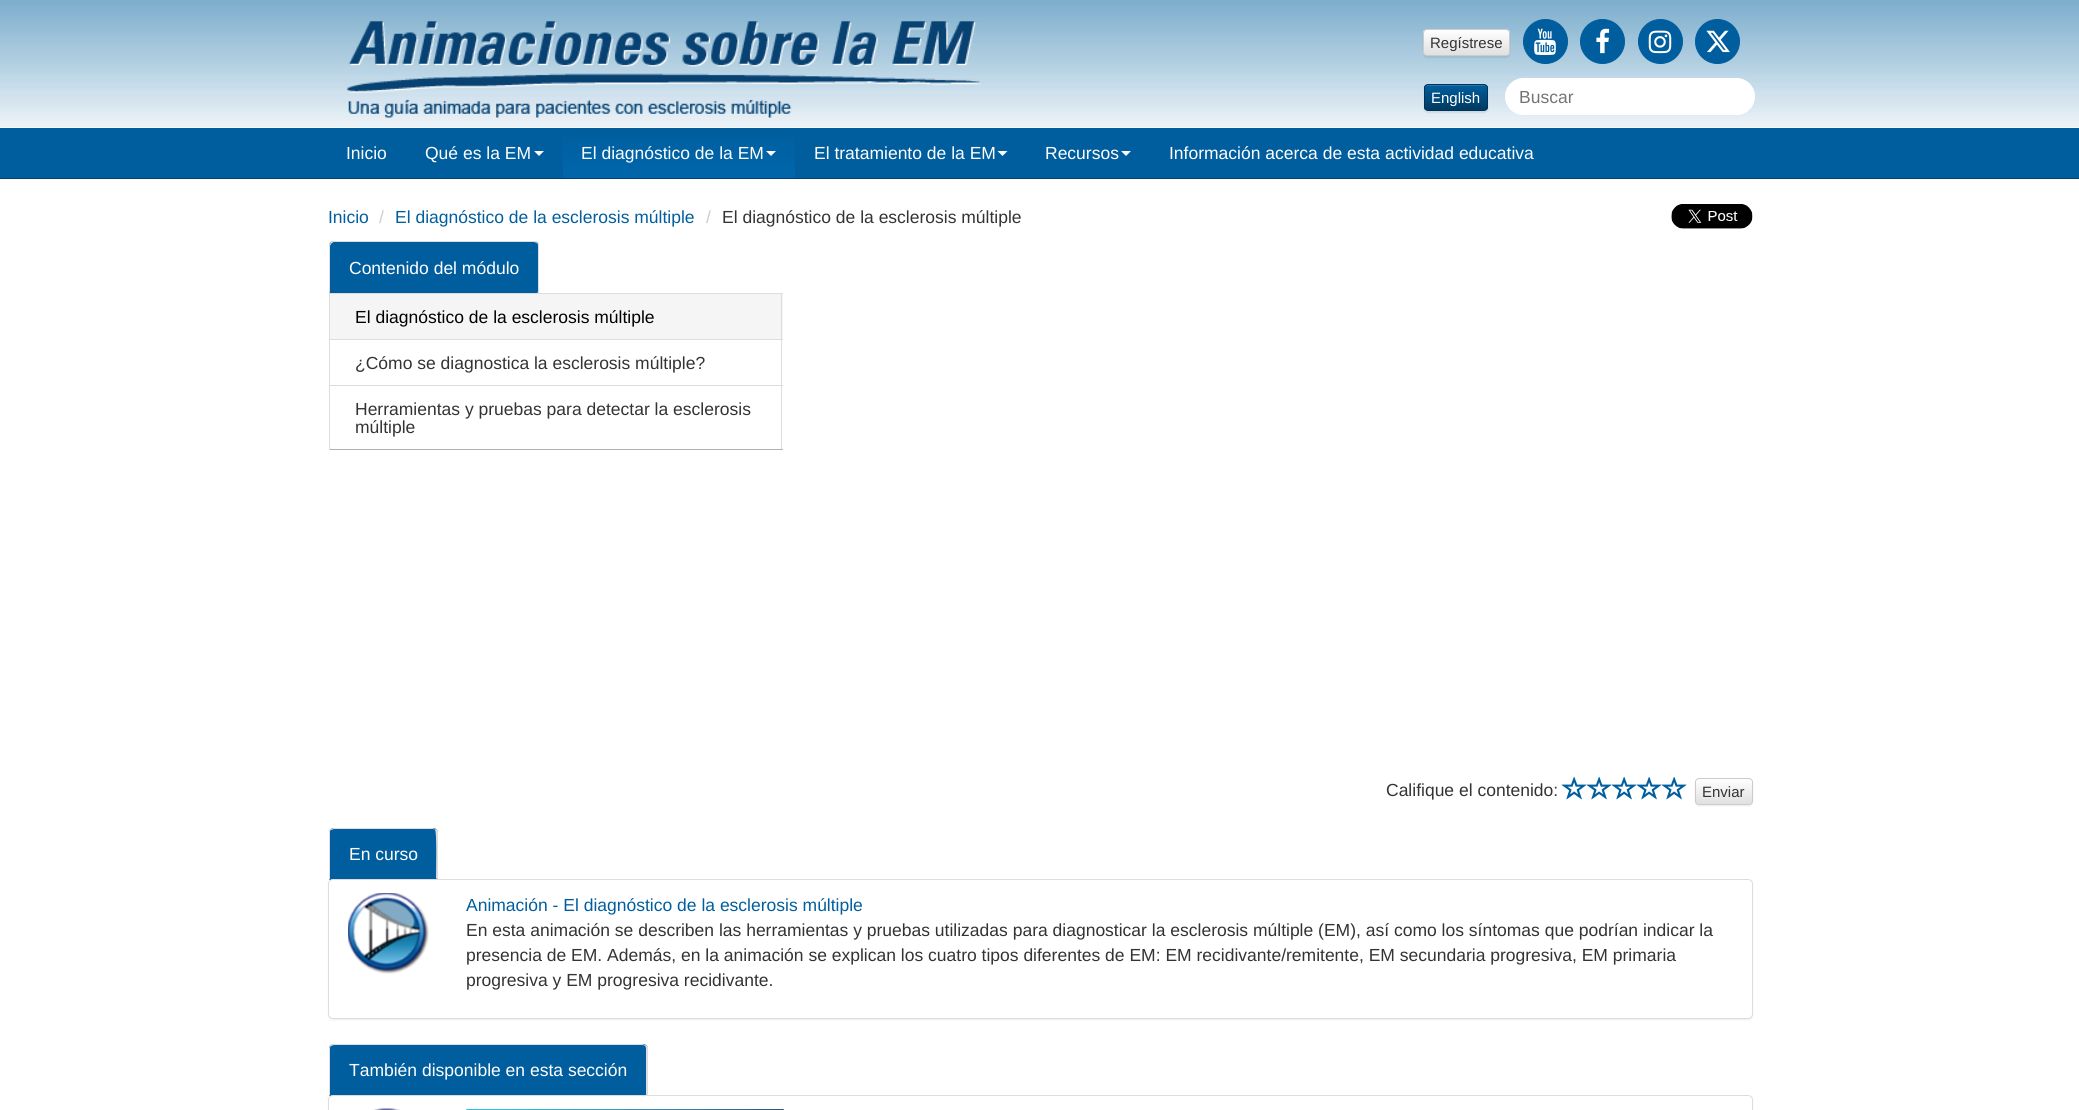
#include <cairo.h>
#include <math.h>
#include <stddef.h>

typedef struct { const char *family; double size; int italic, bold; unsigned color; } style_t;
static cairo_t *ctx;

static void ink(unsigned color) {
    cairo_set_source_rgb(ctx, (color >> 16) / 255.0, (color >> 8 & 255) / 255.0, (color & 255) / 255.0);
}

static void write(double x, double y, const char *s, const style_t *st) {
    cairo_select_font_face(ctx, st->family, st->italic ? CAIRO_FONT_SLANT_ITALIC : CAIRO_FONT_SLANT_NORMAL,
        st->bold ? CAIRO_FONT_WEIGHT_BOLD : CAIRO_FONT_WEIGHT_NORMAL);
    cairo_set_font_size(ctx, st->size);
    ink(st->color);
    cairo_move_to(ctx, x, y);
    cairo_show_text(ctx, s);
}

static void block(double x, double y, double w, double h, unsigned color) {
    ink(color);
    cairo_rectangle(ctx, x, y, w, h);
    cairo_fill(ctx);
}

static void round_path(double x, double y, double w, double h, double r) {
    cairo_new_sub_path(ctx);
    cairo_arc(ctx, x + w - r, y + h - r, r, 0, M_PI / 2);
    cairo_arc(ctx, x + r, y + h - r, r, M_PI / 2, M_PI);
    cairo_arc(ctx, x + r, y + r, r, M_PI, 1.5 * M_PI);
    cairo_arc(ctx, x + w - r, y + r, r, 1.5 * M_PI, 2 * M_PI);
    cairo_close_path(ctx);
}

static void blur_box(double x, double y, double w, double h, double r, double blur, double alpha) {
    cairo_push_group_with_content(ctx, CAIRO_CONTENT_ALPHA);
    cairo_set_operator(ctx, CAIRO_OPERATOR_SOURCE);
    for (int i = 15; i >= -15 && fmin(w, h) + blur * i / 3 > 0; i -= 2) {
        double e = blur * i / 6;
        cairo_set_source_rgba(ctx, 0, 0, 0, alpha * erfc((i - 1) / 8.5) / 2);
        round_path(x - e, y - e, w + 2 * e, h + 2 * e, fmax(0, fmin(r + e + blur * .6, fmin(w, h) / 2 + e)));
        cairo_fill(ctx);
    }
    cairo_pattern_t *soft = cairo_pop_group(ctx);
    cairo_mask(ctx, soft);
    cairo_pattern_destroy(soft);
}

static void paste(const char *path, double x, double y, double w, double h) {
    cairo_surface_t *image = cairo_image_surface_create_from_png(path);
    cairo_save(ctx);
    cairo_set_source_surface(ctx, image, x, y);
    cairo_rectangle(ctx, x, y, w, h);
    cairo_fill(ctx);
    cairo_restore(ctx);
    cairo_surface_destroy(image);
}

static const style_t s1 = {"Liberation Sans", 15, 0, 0, 0x333333};
static const style_t s2 = {"Liberation Sans", 15, 0, 0, 0xffffff};
static const style_t s3 = {"Liberation Sans", 17.5, 0, 0, 0x757575};
static const style_t s4 = {"Liberation Sans", 17.5, 0, 0, 0xffffff};
static const style_t s5 = {"Liberation Sans", 17.5, 0, 0, 0x005e9e};
static const style_t s6 = {"Liberation Sans", 17.5, 0, 0, 0xcccccc};
static const style_t s7 = {"Liberation Sans", 17.5, 0, 0, 0x333333};
static const style_t s8 = {"Liberation Sans", 17.5, 0, 0, 0x000000};

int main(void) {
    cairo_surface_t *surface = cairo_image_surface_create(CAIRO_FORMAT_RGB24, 2079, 1110);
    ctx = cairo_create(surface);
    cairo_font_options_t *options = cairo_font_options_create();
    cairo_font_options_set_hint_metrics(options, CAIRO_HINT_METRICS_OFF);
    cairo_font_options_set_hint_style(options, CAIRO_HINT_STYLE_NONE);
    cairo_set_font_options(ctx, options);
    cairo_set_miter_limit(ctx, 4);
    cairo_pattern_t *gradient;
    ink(0xffffff);
    cairo_paint(ctx);
    paste("pic1.png", 0, 0, 2079, 128);
    paste("pic2.png", 346, 21, 635, 97);
    ink(0x000000);
    blur_box(1423, 30, 87, 28, 4, 0.5, 0.07);
    cairo_save(ctx);
    round_path(1423, 29, 87, 27, 4);
    cairo_clip(ctx);
    gradient = cairo_pattern_create_linear(1466, 30, 1466, 55);
    cairo_pattern_add_color_stop_rgba(gradient, 0, 1, 1, 1, 1);
    cairo_pattern_add_color_stop_rgba(gradient, 1, 0.878, 0.878, 0.878, 1);
    cairo_set_source(ctx, gradient);
    cairo_pattern_destroy(gradient);
    cairo_rectangle(ctx, 1423, 30, 87, 25);
    cairo_fill(ctx);
    cairo_restore(ctx);
    ink(0xfefefe);
    cairo_new_path(ctx);
    cairo_move_to(ctx, 1426, 31);
    cairo_line_to(ctx, 1506, 31);
    cairo_curve_to(ctx, 1508, 31, 1509, 32, 1509, 34);
    cairo_curve_to(ctx, 1509, 26, 1499, 30, 1493, 30);
    cairo_line_to(ctx, 1440, 30);
    cairo_curve_to(ctx, 1434, 30, 1424, 26, 1424, 34);
    cairo_curve_to(ctx, 1424, 32, 1425, 31, 1426, 31);
    cairo_close_path(ctx);
    cairo_fill(ctx);
    round_path(1423.5, 29.5, 86, 26, 3.5);
    ink(0xcccccc);
    cairo_set_line_width(ctx, 1);
    cairo_stroke(ctx);
    write(1430, 48, "Regístrese", &s1);
    ink(0x005e9e);
    cairo_new_path(ctx);
    cairo_arc(ctx, 1545.5, 41.5, 22, 0, 2 * M_PI);
    cairo_fill_preserve(ctx);
    cairo_stroke(ctx);
    paste("pic3.png", 1534, 28, 22, 27);
    cairo_arc(ctx, 1602.5, 41.5, 22, 0, 2 * M_PI);
    cairo_fill_preserve(ctx);
    cairo_stroke(ctx);
    paste("pic4.png", 1596, 28, 14, 26);
    cairo_arc(ctx, 1660.5, 41.5, 22, 0, 2 * M_PI);
    cairo_fill_preserve(ctx);
    cairo_stroke(ctx);
    paste("pic5.png", 1648, 30, 24, 24);
    cairo_arc(ctx, 1717.5, 41.5, 22, 0, 2 * M_PI);
    cairo_fill_preserve(ctx);
    cairo_stroke(ctx);
    paste("pic6.png", 1706, 30, 24, 23);
    ink(0x000000);
    blur_box(1424, 85, 64, 28, 4, 0.5, 0.07);
    cairo_save(ctx);
    round_path(1424, 84, 64, 27, 4);
    cairo_clip(ctx);
    gradient = cairo_pattern_create_linear(1456, 85, 1456, 110);
    cairo_pattern_add_color_stop_rgba(gradient, 0, 0, 0.369, 0.62, 1);
    cairo_pattern_add_color_stop_rgba(gradient, 1, 0, 0.227, 0.38, 1);
    cairo_set_source(ctx, gradient);
    cairo_pattern_destroy(gradient);
    cairo_rectangle(ctx, 1424, 85, 64, 25);
    cairo_fill(ctx);
    cairo_restore(ctx);
    ink(0x2675ac);
    cairo_new_path(ctx);
    cairo_move_to(ctx, 1428, 86);
    cairo_line_to(ctx, 1484, 86);
    cairo_curve_to(ctx, 1485, 86, 1486, 87, 1486, 89);
    cairo_curve_to(ctx, 1486, 83, 1480, 85, 1474, 85);
    cairo_line_to(ctx, 1437, 85);
    cairo_curve_to(ctx, 1431, 85, 1425, 83, 1425, 89);
    cairo_curve_to(ctx, 1425, 87, 1426, 86, 1428, 86);
    cairo_close_path(ctx);
    cairo_fill(ctx);
    round_path(1424.5, 84.5, 63, 26, 3.5);
    ink(0x003457);
    cairo_stroke(ctx);
    write(1431, 103, "English", &s2);
    round_path(1505.5, 78.5, 249, 36, 18);
    cairo_fill_preserve(ctx);
    cairo_stroke(ctx);
    write(1519, 103, "Buscar", &s3);
    block(0, 128, 2079, 50, 0x005e9e);
    block(0, 178, 2079, 1, 0x00406b);
    write(346, 159, "Inicio", &s4);
    write(425, 159, "Qué es la EM", &s4);
    ink(0xfcfcfc);
    cairo_new_path(ctx);
    cairo_move_to(ctx, 534, 151);
    cairo_line_to(ctx, 544, 151);
    cairo_line_to(ctx, 539, 156);
    cairo_close_path(ctx);
    cairo_fill(ctx);
    gradient = cairo_pattern_create_linear(679, 127, 679, 178);
    cairo_pattern_add_color_stop_rgba(gradient, 0, 0, 0.369, 0.62, 1);
    cairo_pattern_add_color_stop_rgba(gradient, 1, 0, 0.4, 0.671, 1);
    cairo_set_source(ctx, gradient);
    cairo_pattern_destroy(gradient);
    cairo_rectangle(ctx, 563, 137, 232, 41);
    cairo_fill(ctx);
    write(581, 159, "El diagnóstico de la EM", &s4);
    cairo_new_path(ctx);
    cairo_move_to(ctx, 766, 151);
    cairo_line_to(ctx, 776, 151);
    cairo_line_to(ctx, 771, 156);
    cairo_close_path(ctx);
    cairo_fill(ctx);
    write(814, 159, "El tratamiento de la EM", &s4);
    ink(0xfcfcfc);
    cairo_new_path(ctx);
    cairo_move_to(ctx, 997.5, 151);
    cairo_line_to(ctx, 1007.5, 151);
    cairo_line_to(ctx, 1002.5, 156);
    cairo_close_path(ctx);
    cairo_fill(ctx);
    write(1045, 159, "Recursos", &s4);
    ink(0xfcfcfc);
    cairo_new_path(ctx);
    cairo_move_to(ctx, 1121, 151);
    cairo_line_to(ctx, 1131, 151);
    cairo_line_to(ctx, 1126, 156);
    cairo_close_path(ctx);
    cairo_fill(ctx);
    write(1169, 159, "Información acerca de esta actividad educativa", &s4);
    write(328, 223, "Inicio", &s5);
    write(379, 223, "/", &s6);
    write(395, 223, "El diagnóstico de la esclerosis múltiple", &s5);
    write(706, 223, "/", &s6);
    write(722, 223, "El diagnóstico de la esclerosis múltiple", &s7);
    paste("pic7.png", 1671, 204, 82, 25);
    ink(0x005e9e);
    cairo_new_path(ctx);
    cairo_move_to(ctx, 334, 241);
    cairo_line_to(ctx, 534, 241);
    cairo_curve_to(ctx, 537, 241, 539, 243, 539, 246);
    cairo_line_to(ctx, 539, 294);
    cairo_line_to(ctx, 329, 294);
    cairo_line_to(ctx, 329, 246);
    cairo_curve_to(ctx, 329, 243, 331, 241, 334, 241);
    cairo_close_path(ctx);
    cairo_fill(ctx);
    ink(0xdddddd);
    cairo_new_path(ctx);
    cairo_move_to(ctx, 334, 242);
    cairo_curve_to(ctx, 333, 242, 332, 243, 331, 244);
    cairo_line_to(ctx, 330, 243);
    cairo_line_to(ctx, 332, 241);
    cairo_line_to(ctx, 536, 241);
    cairo_line_to(ctx, 538, 242);
    cairo_line_to(ctx, 537, 243);
    cairo_line_to(ctx, 534, 242);
    cairo_close_path(ctx);
    cairo_fill(ctx);
    cairo_new_path(ctx);
    cairo_move_to(ctx, 538, 242);
    cairo_line_to(ctx, 539, 244);
    cairo_line_to(ctx, 539, 294);
    cairo_line_to(ctx, 537, 292);
    cairo_line_to(ctx, 538, 292);
    cairo_line_to(ctx, 538, 246);
    cairo_curve_to(ctx, 538, 245, 538, 244, 537, 243);
    cairo_close_path(ctx);
    cairo_fill(ctx);
    cairo_new_path(ctx);
    cairo_move_to(ctx, 329, 294);
    cairo_line_to(ctx, 329, 246);
    cairo_curve_to(ctx, 329, 245, 329, 243, 330, 243);
    cairo_line_to(ctx, 331, 244);
    cairo_line_to(ctx, 330, 246);
    cairo_line_to(ctx, 330, 292);
    cairo_close_path(ctx);
    cairo_fill(ctx);
    write(349, 274, "Contenido del módulo", &s4);
    block(330, 294, 453, 45, 0xf5f5f5);
    block(329, 293, 454, 1, 0xdddddd);
    block(781, 293, 1, 46, 0xdddddd);
    block(329, 293, 1, 46, 0xdddddd);
    write(355, 323, "El diagnóstico de la esclerosis múltiple", &s8);
    block(329, 339, 454, 1, 0xdddddd);
    block(781, 339, 1, 46, 0xdddddd);
    block(329, 339, 1, 46, 0xdddddd);
    write(355, 369, "¿Cómo se diagnostica la esclerosis múltiple?", &s7);
    block(329, 385, 454, 1, 0xdddddd);
    block(781, 385, 1, 65, 0xdddddd);
    block(329, 449, 454, 1, 0xb1b1b1);
    block(329, 385, 1, 65, 0xdddddd);
    write(355, 415, "Herramientas y pruebas para detectar la esclerosis", &s7);
    write(355, 433, "múltiple", &s7);
    write(1386, 796, "Califique el contenido:", &s7);
    paste("pic8.png", 1561, 776, 26, 24);
    paste("pic9.png", 1586, 776, 26, 24);
    paste("pic9.png", 1611, 776, 26, 24);
    paste("pic9.png", 1636, 776, 26, 24);
    paste("pic9.png", 1661, 776, 26, 24);
    ink(0x000000);
    blur_box(1695, 779, 58, 27, 4, 0.5, 0.07);
    cairo_save(ctx);
    round_path(1695, 778, 58, 27, 4);
    cairo_clip(ctx);
    gradient = cairo_pattern_create_linear(1724, 779, 1724, 804);
    cairo_pattern_add_color_stop_rgba(gradient, 0, 1, 1, 1, 1);
    cairo_pattern_add_color_stop_rgba(gradient, 1, 0.878, 0.878, 0.878, 1);
    cairo_set_source(ctx, gradient);
    cairo_pattern_destroy(gradient);
    cairo_rectangle(ctx, 1695, 779, 58, 25);
    cairo_fill(ctx);
    cairo_restore(ctx);
    round_path(1695.5, 778.5, 57, 26, 3.5);
    ink(0xcccccc);
    cairo_stroke(ctx);
    write(1702, 797, "Enviar", &s1);
    ink(0x000000);
    blur_box(328, 880, 1425, 140, 5, 1, 0.07);
    ink(0x005e9e);
    cairo_new_path(ctx);
    cairo_move_to(ctx, 334, 828);
    cairo_line_to(ctx, 433, 828);
    cairo_curve_to(ctx, 436, 828, 438, 830, 438, 833);
    cairo_line_to(ctx, 438, 880);
    cairo_line_to(ctx, 329, 880);
    cairo_line_to(ctx, 329, 833);
    cairo_curve_to(ctx, 329, 830, 331, 828, 334, 828);
    cairo_close_path(ctx);
    cairo_fill(ctx);
    ink(0xdddddd);
    cairo_new_path(ctx);
    cairo_move_to(ctx, 334, 828);
    cairo_line_to(ctx, 330, 829);
    cairo_line_to(ctx, 331, 830);
    cairo_line_to(ctx, 334, 829);
    cairo_line_to(ctx, 432, 829);
    cairo_curve_to(ctx, 434, 829, 435, 829, 435, 830);
    cairo_line_to(ctx, 436, 829);
    cairo_line_to(ctx, 432, 828);
    cairo_close_path(ctx);
    cairo_fill(ctx);
    cairo_new_path(ctx);
    cairo_move_to(ctx, 438, 831);
    cairo_line_to(ctx, 438, 880);
    cairo_line_to(ctx, 436, 878);
    cairo_curve_to(ctx, 436, 873, 437, 831, 435, 830);
    cairo_line_to(ctx, 436, 829);
    cairo_close_path(ctx);
    cairo_fill(ctx);
    cairo_new_path(ctx);
    cairo_move_to(ctx, 330, 829);
    cairo_line_to(ctx, 329, 831);
    cairo_line_to(ctx, 329, 880);
    cairo_line_to(ctx, 330, 879);
    cairo_line_to(ctx, 330, 831);
    cairo_line_to(ctx, 331, 830);
    cairo_close_path(ctx);
    cairo_fill(ctx);
    write(349, 860, "En curso", &s4);
    round_path(328.5, 879.5, 1424, 139, 4.5);
    cairo_fill_preserve(ctx);
    ink(0xdddddd);
    cairo_stroke(ctx);
    paste("pic10.png", 348, 893, 81, 81);
    write(466, 911, "Animación - El diagnóstico de la esclerosis múltiple", &s5);
    write(466, 936, "En esta animación se describen las herramientas y pruebas utilizadas para diagnosticar la esclerosis múltiple (EM), así como los síntomas que podrían indicar la", &s7);
    write(466, 961, "presencia de EM. Además, en la animación se explican los cuatro tipos diferentes de EM: EM recidivante/remitente, EM secundaria progresiva, EM primaria", &s7);
    write(466, 986, "progresiva y EM progresiva recidivante.", &s7);
    ink(0x000000);
    blur_box(328, 1096, 1425, 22, 5, 1, 0.07);
    ink(0x005e9e);
    cairo_new_path(ctx);
    cairo_move_to(ctx, 334, 1044);
    cairo_line_to(ctx, 643, 1044);
    cairo_curve_to(ctx, 646, 1044, 648, 1046, 648, 1049);
    cairo_line_to(ctx, 648, 1096);
    cairo_line_to(ctx, 329, 1096);
    cairo_line_to(ctx, 329, 1049);
    cairo_curve_to(ctx, 329, 1046, 331, 1044, 334, 1044);
    cairo_close_path(ctx);
    cairo_fill(ctx);
    ink(0xdddddd);
    cairo_new_path(ctx);
    cairo_move_to(ctx, 334, 1044);
    cairo_curve_to(ctx, 332, 1044, 331, 1044, 330, 1045);
    cairo_line_to(ctx, 331, 1046);
    cairo_curve_to(ctx, 332, 1046, 333, 1045, 334, 1045);
    cairo_line_to(ctx, 642, 1045);
    cairo_curve_to(ctx, 643, 1045, 644, 1045, 645, 1046);
    cairo_line_to(ctx, 646, 1045);
    cairo_line_to(ctx, 642, 1044);
    cairo_close_path(ctx);
    cairo_fill(ctx);
    cairo_new_path(ctx);
    cairo_move_to(ctx, 646, 1045);
    cairo_line_to(ctx, 648, 1047);
    cairo_line_to(ctx, 648, 1096);
    cairo_line_to(ctx, 646, 1095);
    cairo_line_to(ctx, 646, 1049);
    cairo_curve_to(ctx, 646, 1048, 646, 1047, 645, 1046);
    cairo_close_path(ctx);
    cairo_fill(ctx);
    cairo_new_path(ctx);
    cairo_move_to(ctx, 330, 1045);
    cairo_curve_to(ctx, 330, 1046, 329, 1048, 329, 1049);
    cairo_line_to(ctx, 329, 1096);
    cairo_line_to(ctx, 330, 1095);
    cairo_line_to(ctx, 330, 1049);
    cairo_curve_to(ctx, 330, 1048, 330, 1047, 331, 1046);
    cairo_close_path(ctx);
    cairo_fill(ctx);
    write(349, 1076, "También disponible en esta sección", &s4);
    round_path(328.5, 1095.5, 1424, 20, 4.5);
    cairo_fill_preserve(ctx);
    ink(0xdddddd);
    cairo_stroke(ctx);
    paste("pic11.png", 374, 1108, 26, 2);
    paste("pic12.png", 466, 1109, 318, 1);
    cairo_surface_write_to_png(surface, "screenshot.png");
    cairo_font_options_destroy(options);
    cairo_destroy(ctx);
    cairo_surface_destroy(surface);
    return 0;
}
